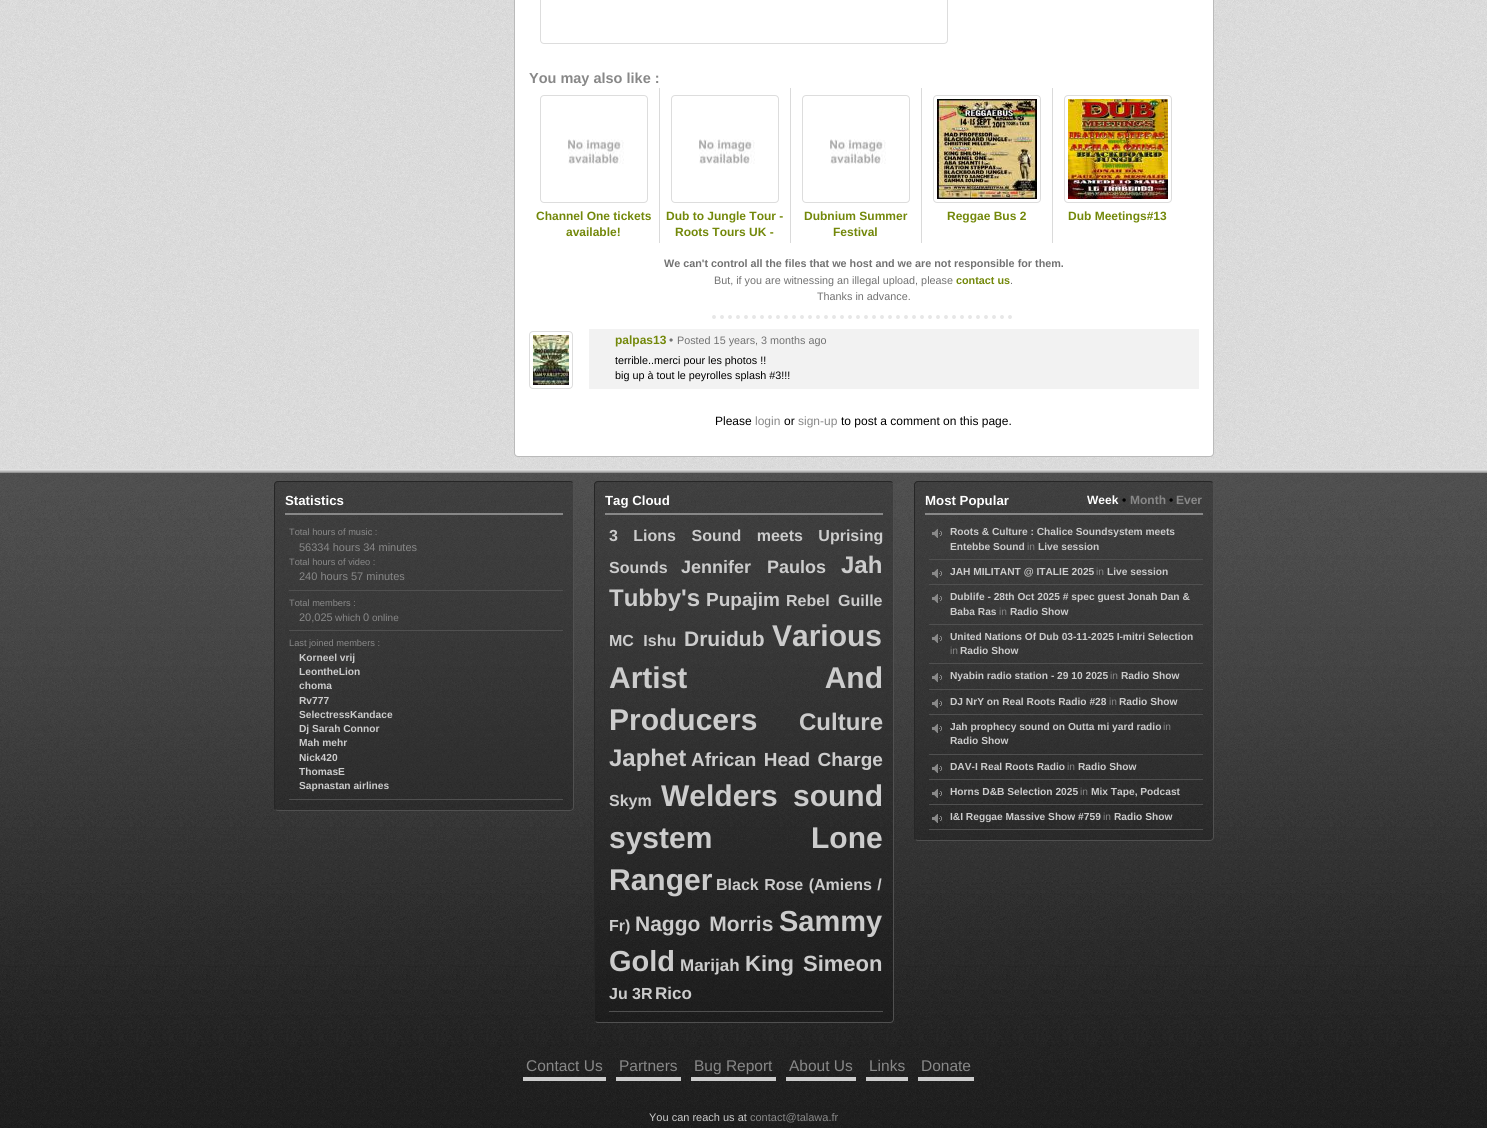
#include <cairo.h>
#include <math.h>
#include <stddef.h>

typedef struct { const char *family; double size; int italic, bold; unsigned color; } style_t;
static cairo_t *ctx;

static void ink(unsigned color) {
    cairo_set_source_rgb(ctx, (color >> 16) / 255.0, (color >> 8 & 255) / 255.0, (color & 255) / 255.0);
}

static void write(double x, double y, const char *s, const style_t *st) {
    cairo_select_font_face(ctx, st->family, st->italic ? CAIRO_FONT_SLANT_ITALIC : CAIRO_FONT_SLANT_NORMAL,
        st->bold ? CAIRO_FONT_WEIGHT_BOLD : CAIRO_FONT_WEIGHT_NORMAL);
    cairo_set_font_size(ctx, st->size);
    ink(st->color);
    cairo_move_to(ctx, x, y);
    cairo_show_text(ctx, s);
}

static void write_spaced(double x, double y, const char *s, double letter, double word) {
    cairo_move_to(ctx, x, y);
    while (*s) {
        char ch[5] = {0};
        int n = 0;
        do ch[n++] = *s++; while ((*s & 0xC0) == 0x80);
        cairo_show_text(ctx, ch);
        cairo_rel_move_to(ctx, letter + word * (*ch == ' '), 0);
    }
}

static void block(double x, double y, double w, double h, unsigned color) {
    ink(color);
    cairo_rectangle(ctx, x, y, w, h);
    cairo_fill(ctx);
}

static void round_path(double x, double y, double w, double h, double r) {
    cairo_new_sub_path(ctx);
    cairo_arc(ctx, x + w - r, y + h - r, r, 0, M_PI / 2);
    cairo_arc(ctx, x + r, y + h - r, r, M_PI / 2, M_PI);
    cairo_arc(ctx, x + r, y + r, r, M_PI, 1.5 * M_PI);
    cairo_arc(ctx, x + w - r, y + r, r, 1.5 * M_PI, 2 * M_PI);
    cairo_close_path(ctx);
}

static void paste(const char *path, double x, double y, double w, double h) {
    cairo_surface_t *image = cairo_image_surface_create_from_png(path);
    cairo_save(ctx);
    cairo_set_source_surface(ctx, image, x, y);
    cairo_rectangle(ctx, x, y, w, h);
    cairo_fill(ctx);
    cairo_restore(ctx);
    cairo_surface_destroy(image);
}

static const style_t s1 = {"Liberation Sans", 14.5, 0, 1, 0x888888};
static const style_t s2 = {"Liberation Sans", 12, 0, 1, 0x73880a};
static const style_t s3 = {"Liberation Sans", 10.8, 0, 1, 0x727272};
static const style_t s4 = {"Liberation Sans", 10.8, 0, 0, 0x727272};
static const style_t s5 = {"Liberation Sans", 10.8, 0, 1, 0x73880a};
static const style_t s6 = {"Liberation Sans", 12, 0, 0, 0x727272};
static const style_t s7 = {"Liberation Sans", 10.8, 0, 0, 0x000000};
static const style_t s8 = {"Liberation Sans", 12, 0, 0, 0x000000};
static const style_t s9 = {"Liberation Sans", 12, 0, 0, 0x888888};
static const style_t s10 = {"Liberation Sans", 13.25, 0, 1, 0xffffff};
static const style_t s11 = {"Liberation Sans", 9.25, 0, 0, 0x888888};
static const style_t s12 = {"Liberation Sans", 11, 0, 0, 0x888888};
static const style_t s13 = {"Liberation Sans", 10, 0, 0, 0x888888};
static const style_t s14 = {"Liberation Sans", 10.2, 0, 1, 0xcccccc};
static const style_t s15 = {"Liberation Sans", 16, 0, 1, 0xcccccc};
static const style_t s16 = {"Liberation Sans", 24, 0, 1, 0xcccccc};
static const style_t s17 = {"Liberation Sans", 19, 0, 1, 0xcccccc};
static const style_t s18 = {"Liberation Sans", 21, 0, 1, 0xcccccc};
static const style_t s19 = {"Liberation Sans", 30, 0, 1, 0xcccccc};
static const style_t s20 = {"Liberation Sans", 29, 0, 1, 0xcccccc};
static const style_t s21 = {"Liberation Sans", 17, 0, 1, 0xcccccc};
static const style_t s22 = {"Liberation Sans", 12, 0, 1, 0xffffff};
static const style_t s23 = {"Liberation Sans", 12, 0, 1, 0x000000};
static const style_t s24 = {"Liberation Sans", 12, 0, 1, 0x888888};
static const style_t s25 = {"Liberation Sans", 10.2, 0, 0, 0x888888};
static const style_t s26 = {"Liberation Sans", 15.5, 0, 0, 0x888888};
static const style_t s27 = {"Liberation Sans", 11, 0, 0, 0xcccccc};

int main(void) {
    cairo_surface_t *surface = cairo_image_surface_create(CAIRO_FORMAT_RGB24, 1487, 1128);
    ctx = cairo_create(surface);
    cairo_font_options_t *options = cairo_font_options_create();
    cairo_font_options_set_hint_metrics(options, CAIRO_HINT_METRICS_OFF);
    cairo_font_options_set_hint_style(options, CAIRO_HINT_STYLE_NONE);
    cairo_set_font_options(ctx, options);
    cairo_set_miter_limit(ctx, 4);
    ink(0xffffff);
    cairo_paint(ctx);
    paste("pic1.png", 0, 0, 1487, 469);
    ink(0xffffff);
    round_path(514.5, -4.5, 699, 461, 3.5);
    cairo_fill_preserve(ctx);
    ink(0xbababa);
    cairo_set_line_width(ctx, 1);
    cairo_stroke(ctx);
    round_path(540.5, -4.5, 407, 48, 3.5);
    ink(0xdddddd);
    cairo_stroke(ctx);
    write(529, 83, "You may also like :", &s1);
    block(659, 88, 1, 155, 0xdadada);
    round_path(540.5, 95.5, 107, 107, 3.5);
    ink(0xdddddd);
    cairo_stroke(ctx);
    paste("pic2.png", 568, 139, 56, 25);
    write(536, 220, "Channel One tickets", &s2);
    write(566, 236, "available!", &s2);
    block(790, 88, 1, 155, 0xdadada);
    round_path(671.5, 95.5, 107, 107, 3.5);
    ink(0xdddddd);
    cairo_stroke(ctx);
    paste("pic2.png", 699, 139, 56, 25);
    write(666, 220, "Dub to Jungle Tour -", &s2);
    write(675, 236, "Roots Tours UK -", &s2);
    block(921, 88, 1, 155, 0xdadada);
    round_path(802.5, 95.5, 107, 107, 3.5);
    ink(0xdddddd);
    cairo_stroke(ctx);
    paste("pic2.png", 830, 139, 56, 25);
    write(804, 220, "Dubnium Summer", &s2);
    write(833, 236, "Festival", &s2);
    block(1052, 88, 1, 155, 0xdadada);
    round_path(933.5, 95.5, 107, 107, 3.5);
    ink(0xdddddd);
    cairo_stroke(ctx);
    paste("pic3.png", 937, 99, 100, 100);
    write(947, 220, "Reggae Bus 2", &s2);
    round_path(1064.5, 95.5, 107, 107, 3.5);
    ink(0xdddddd);
    cairo_stroke(ctx);
    paste("pic4.png", 1068, 99, 100, 100);
    write(1068, 220, "Dub Meetings#13", &s2);
    write(664, 267, "We can't control all the files that we host and we are not responsible for them.", &s3);
    write(714, 284, "But, if you are witnessing an illegal upload, please", &s4);
    write(956, 284, "contact us", &s5);
    write(1010, 284, ".", &s4);
    write(817, 300, "Thanks in advance.", &s4);
    cairo_new_path(ctx);
    cairo_move_to(ctx, 714, 317);
    cairo_line_to(ctx, 1014, 317);
    ink(0xe7e7e7);
    cairo_set_line_width(ctx, 4);
    cairo_set_line_cap(ctx, CAIRO_LINE_CAP_ROUND);
    cairo_set_dash(ctx, (double[]){0, 8}, 2, 0);
    cairo_stroke(ctx);
    round_path(529.5, 331.5, 43, 57, 3.5);
    ink(0xdddddd);
    cairo_set_line_width(ctx, 1);
    cairo_set_line_cap(ctx, CAIRO_LINE_CAP_BUTT);
    cairo_set_dash(ctx, NULL, 0, 0);
    cairo_stroke(ctx);
    paste("pic5.png", 533, 335, 36, 50);
    block(589, 329, 610, 60, 0xf2f2f2);
    write(615, 344, "palpas13", &s2);
    write(669, 344, "•", &s6);
    write(677, 344, "Posted 15 years, 3 months ago", &s4);
    write(615, 364, "terrible..merci pour les photos !!", &s7);
    write(615, 379, "big up à tout le peyrolles splash #3!!!", &s7);
    write(715, 425, "Please", &s8);
    write(755, 425, "login", &s9);
    write(784, 425, "or", &s8);
    write(798, 425, "sign-up", &s9);
    write(841, 425, "to post a comment on this page.", &s8);
    paste("pic6.png", 0, 469, 1487, 659);
    cairo_set_source_rgba(ctx, 0, 0, 0, 0.2);
    round_path(274, 481, 300, 330, 4);
    cairo_fill(ctx);
    cairo_new_path(ctx);
    cairo_move_to(ctx, 572.5, 482.5);
    cairo_curve_to(ctx, 573, 483, 573.5, 484, 573.5, 485);
    cairo_line_to(ctx, 573.5, 807);
    cairo_curve_to(ctx, 573.5, 808, 573, 809, 572.5, 809.5);
    cairo_curve_to(ctx, 572, 810, 571, 810.5, 570, 810.5);
    cairo_line_to(ctx, 278, 810.5);
    cairo_curve_to(ctx, 277, 810.5, 276, 810, 275.5, 809.5);
    ink(0x505050);
    cairo_stroke(ctx);
    cairo_new_path(ctx);
    cairo_move_to(ctx, 275.5, 809.5);
    cairo_curve_to(ctx, 275, 809, 274.5, 808, 274.5, 807);
    cairo_line_to(ctx, 274.5, 485);
    cairo_curve_to(ctx, 274.5, 484, 275, 483, 275.5, 482.5);
    cairo_curve_to(ctx, 276, 482, 277, 481.5, 278, 481.5);
    cairo_line_to(ctx, 570, 481.5);
    cairo_curve_to(ctx, 571, 481.5, 572, 482, 572.5, 482.5);
    ink(0x262626);
    cairo_stroke(ctx);
    block(285, 513, 278, 2, 0x888888);
    write(285, 505, "Statistics", &s10);
    block(289, 590, 274, 1, 0x505050);
    write(289, 535, "Total hours of music :", &s11);
    write(299, 551, "56334 hours 34 minutes", &s12);
    write(289, 565, "Total hours of video :", &s11);
    write(299, 580, "240 hours 57 minutes", &s12);
    block(289, 630, 274, 1, 0x505050);
    write(289, 606, "Total members :", &s11);
    write(299, 621, "20,025", &s12);
    write(335, 621, "which", &s13);
    write(363, 621, "0", &s12);
    write(372, 621, "online", &s13);
    block(289, 799, 274, 1, 0x505050);
    write(289, 646, "Last joined members :", &s11);
    write(299, 661, "Korneel vrij", &s14);
    write(299, 675, "LeontheLion", &s14);
    write(299, 689, "choma", &s14);
    write(299, 704, "Rv777", &s14);
    write(299, 718, "SelectressKandace", &s14);
    write(299, 732, "Dj Sarah Connor", &s14);
    write(299, 746, "Mah mehr", &s14);
    write(299, 761, "Nick420", &s14);
    write(299, 775, "ThomasE", &s14);
    write(299, 789, "Sapnastan airlines", &s14);
    cairo_set_source_rgba(ctx, 0, 0, 0, 0.2);
    round_path(594, 481, 300, 542, 4);
    cairo_fill(ctx);
    cairo_new_path(ctx);
    cairo_move_to(ctx, 892.5, 482.5);
    cairo_curve_to(ctx, 893, 483, 893.5, 484, 893.5, 485);
    cairo_line_to(ctx, 893.5, 1019);
    cairo_curve_to(ctx, 893.5, 1020, 893, 1021, 892.5, 1021.5);
    cairo_curve_to(ctx, 892, 1022, 891, 1022.5, 890, 1022.5);
    cairo_line_to(ctx, 598, 1022.5);
    cairo_curve_to(ctx, 597, 1022.5, 596, 1022, 595.5, 1021.5);
    ink(0x505050);
    cairo_stroke(ctx);
    cairo_new_path(ctx);
    cairo_move_to(ctx, 595.5, 1021.5);
    cairo_curve_to(ctx, 595, 1021, 594.5, 1020, 594.5, 1019);
    cairo_line_to(ctx, 594.5, 485);
    cairo_curve_to(ctx, 594.5, 484, 595, 483, 595.5, 482.5);
    cairo_curve_to(ctx, 596, 482, 597, 481.5, 598, 481.5);
    cairo_line_to(ctx, 890, 481.5);
    cairo_curve_to(ctx, 891, 481.5, 892, 482, 892.5, 482.5);
    ink(0x262626);
    cairo_stroke(ctx);
    block(605, 513, 278, 2, 0x888888);
    write(605, 505, "Tag Cloud", &s10);
    block(609, 1011, 274, 1, 0x505050);
    cairo_set_font_size(ctx, 16);
    ink(0xcccccc);
    write_spaced(609, 541, "3 Lions Sound meets Uprising", 0, 11);
    write(609, 573, "Sounds", &s15);
    cairo_set_font_size(ctx, 18);
    write_spaced(681, 573, "Jennifer Paulos", 0, 11);
    write(841, 573, "Jah", &s16);
    write(609, 606, "Tubby's", &s16);
    write(706, 606, "Pupajim", &s17);
    cairo_set_font_size(ctx, 16);
    write_spaced(786, 606, "Rebel Guille", 0, 4);
    write_spaced(609, 646, "MC Ishu", 0, 5);
    write(684, 646, "Druidub", &s18);
    write(772, 646, "Various", &s19);
    write_spaced(609, 688, "Artist And", 0, 129);
    write(609, 730, "Producers", &s19);
    write(799, 730, "Culture", &s16);
    write(609, 766, "Japhet", &s16);
    cairo_set_font_size(ctx, 19);
    write_spaced(691, 766, "African Head Charge", 0, 2);
    write(609, 806, "Skym", &s15);
    cairo_set_font_size(ctx, 30);
    write_spaced(661, 806, "Welders sound", 0, 7);
    write(609, 848, "system", &s19);
    write(811, 848, "Lone", &s19);
    write(609, 890, "Ranger", &s19);
    cairo_set_font_size(ctx, 16);
    write_spaced(716, 890, "Black Rose (Amiens /", 0, 1);
    write(609, 931, "Fr)", &s15);
    cairo_set_font_size(ctx, 21);
    write_spaced(635, 931, "Naggo Morris", 0, 3);
    write(779, 931, "Sammy", &s20);
    write(609, 971, "Gold", &s20);
    write(680, 971, "Marijah", &s21);
    cairo_set_font_size(ctx, 22);
    write_spaced(745, 971, "King Simeon", 0, 3);
    write(609, 999, "Ju 3R", &s15);
    write(655, 999, "Rico", &s21);
    cairo_set_source_rgba(ctx, 0, 0, 0, 0.2);
    round_path(914, 481, 300, 360, 4);
    cairo_fill(ctx);
    cairo_new_path(ctx);
    cairo_move_to(ctx, 1212.5, 482.5);
    cairo_curve_to(ctx, 1213, 483, 1213.5, 484, 1213.5, 485);
    cairo_line_to(ctx, 1213.5, 837);
    cairo_curve_to(ctx, 1213.5, 838, 1213, 839, 1212.5, 839.5);
    cairo_curve_to(ctx, 1212, 840, 1211, 840.5, 1210, 840.5);
    cairo_line_to(ctx, 918, 840.5);
    cairo_curve_to(ctx, 917, 840.5, 916, 840, 915.5, 839.5);
    ink(0x505050);
    cairo_stroke(ctx);
    cairo_new_path(ctx);
    cairo_move_to(ctx, 915.5, 839.5);
    cairo_curve_to(ctx, 915, 839, 914.5, 838, 914.5, 837);
    cairo_line_to(ctx, 914.5, 485);
    cairo_curve_to(ctx, 914.5, 484, 915, 483, 915.5, 482.5);
    cairo_curve_to(ctx, 916, 482, 917, 481.5, 918, 481.5);
    cairo_line_to(ctx, 1210, 481.5);
    cairo_curve_to(ctx, 1211, 481.5, 1212, 482, 1212.5, 482.5);
    ink(0x262626);
    cairo_stroke(ctx);
    block(925, 513, 278, 2, 0x888888);
    write(925, 505, "Most Popular", &s10);
    write(1087, 504, "Week", &s22);
    write(1122, 504, "•", &s23);
    write(1130, 504, "Month", &s24);
    write(1169, 504, "•", &s23);
    write(1176, 504, "Ever", &s24);
    block(929, 559, 274, 1, 0x505050);
    paste("pic7.png", 932, 529, 10, 9);
    write(950, 535, "Roots & Culture : Chalice Soundsystem meets", &s14);
    write(950, 550, "Entebbe Sound", &s14);
    write(1027, 550, "in", &s25);
    write(1038, 550, "Live session", &s14);
    block(929, 584, 274, 1, 0x505050);
    paste("pic8.png", 932, 569, 10, 9);
    write(950, 575, "JAH MILITANT @ ITALIE 2025", &s14);
    write(1096, 575, "in", &s25);
    write(1107, 575, "Live session", &s14);
    block(929, 624, 274, 1, 0x505050);
    paste("pic9.png", 932, 594, 10, 9);
    write(950, 600, "Dublife - 28th Oct 2025 # spec guest Jonah Dan &", &s14);
    write(950, 615, "Baba Ras", &s14);
    write(999, 615, "in", &s25);
    write(1010, 615, "Radio Show", &s14);
    block(929, 663, 274, 1, 0x505050);
    paste("pic10.png", 932, 634, 10, 9);
    write(950, 640, "United Nations Of Dub 03-11-2025 I-mitri Selection", &s14);
    write(950, 654, "in", &s25);
    write(960, 654, "Radio Show", &s14);
    block(929, 689, 274, 1, 0x505050);
    paste("pic11.png", 932, 673, 10, 9);
    write(950, 679, "Nyabin radio station - 29 10 2025", &s14);
    write(1110, 679, "in", &s25);
    write(1121, 679, "Radio Show", &s14);
    block(929, 714, 274, 1, 0x505050);
    paste("pic12.png", 932, 699, 10, 9);
    write(950, 705, "DJ NrY on Real Roots Radio #28", &s14);
    write(1109, 705, "in", &s25);
    write(1119, 705, "Radio Show", &s14);
    block(929, 754, 274, 1, 0x505050);
    paste("pic13.png", 932, 724, 10, 9);
    write(950, 730, "Jah prophecy sound on Outta mi yard radio", &s14);
    write(1163, 730, "in", &s25);
    write(950, 744, "Radio Show", &s14);
    block(929, 779, 274, 1, 0x505050);
    paste("pic14.png", 932, 764, 10, 9);
    write(950, 770, "DAV-I Real Roots Radio", &s14);
    write(1067, 770, "in", &s25);
    write(1078, 770, "Radio Show", &s14);
    block(929, 804, 274, 1, 0x505050);
    paste("pic15.png", 932, 789, 10, 9);
    write(950, 795, "Horns D&B Selection 2025", &s14);
    write(1080, 795, "in", &s25);
    write(1091, 795, "Mix Tape, Podcast", &s14);
    block(929, 829, 274, 1, 0x505050);
    paste("pic16.png", 932, 814, 10, 9);
    write(950, 820, "I&I Reggae Massive Show #759", &s14);
    write(1103, 820, "in", &s25);
    write(1114, 820, "Radio Show", &s14);
    write(526, 1071, "Contact Us", &s26);
    block(523, 1077, 83, 4, 0xcccccc);
    write(619, 1071, "Partners", &s26);
    block(616, 1077, 65, 4, 0xcccccc);
    write(694, 1071, "Bug Report", &s26);
    block(691, 1077, 85, 4, 0xcccccc);
    write(789, 1071, "About Us", &s26);
    block(786, 1077, 70, 4, 0xcccccc);
    write(869, 1071, "Links", &s26);
    block(866, 1077, 42, 4, 0xcccccc);
    write(921, 1071, "Donate", &s26);
    block(918, 1077, 56, 4, 0xcccccc);
    write(649, 1121, "You can reach us at", &s27);
    write(750, 1121, "contact@talawa.fr", &s12);
    cairo_surface_write_to_png(surface, "screenshot.png");
    cairo_font_options_destroy(options);
    cairo_destroy(ctx);
    cairo_surface_destroy(surface);
    return 0;
}
